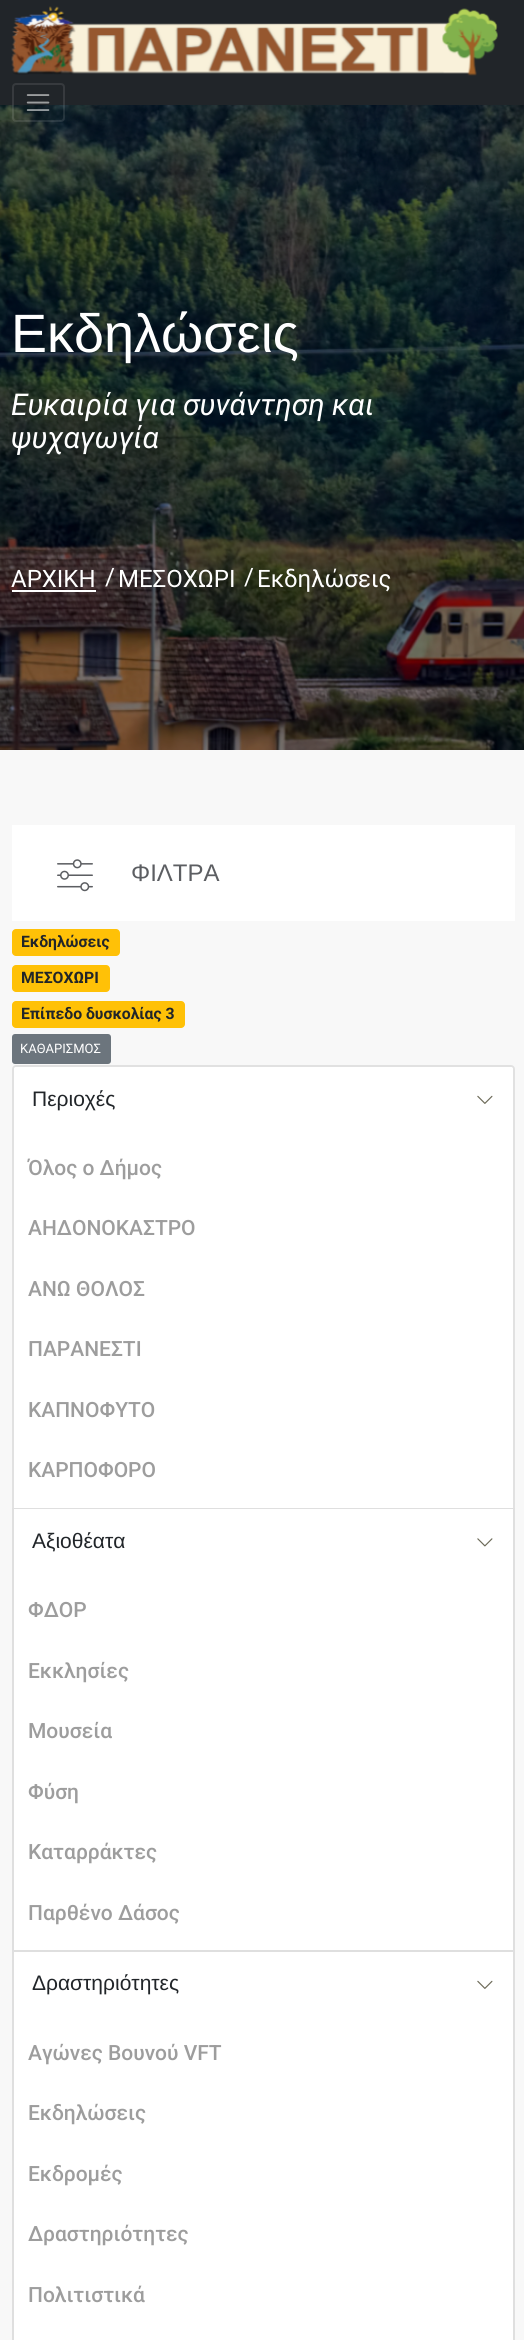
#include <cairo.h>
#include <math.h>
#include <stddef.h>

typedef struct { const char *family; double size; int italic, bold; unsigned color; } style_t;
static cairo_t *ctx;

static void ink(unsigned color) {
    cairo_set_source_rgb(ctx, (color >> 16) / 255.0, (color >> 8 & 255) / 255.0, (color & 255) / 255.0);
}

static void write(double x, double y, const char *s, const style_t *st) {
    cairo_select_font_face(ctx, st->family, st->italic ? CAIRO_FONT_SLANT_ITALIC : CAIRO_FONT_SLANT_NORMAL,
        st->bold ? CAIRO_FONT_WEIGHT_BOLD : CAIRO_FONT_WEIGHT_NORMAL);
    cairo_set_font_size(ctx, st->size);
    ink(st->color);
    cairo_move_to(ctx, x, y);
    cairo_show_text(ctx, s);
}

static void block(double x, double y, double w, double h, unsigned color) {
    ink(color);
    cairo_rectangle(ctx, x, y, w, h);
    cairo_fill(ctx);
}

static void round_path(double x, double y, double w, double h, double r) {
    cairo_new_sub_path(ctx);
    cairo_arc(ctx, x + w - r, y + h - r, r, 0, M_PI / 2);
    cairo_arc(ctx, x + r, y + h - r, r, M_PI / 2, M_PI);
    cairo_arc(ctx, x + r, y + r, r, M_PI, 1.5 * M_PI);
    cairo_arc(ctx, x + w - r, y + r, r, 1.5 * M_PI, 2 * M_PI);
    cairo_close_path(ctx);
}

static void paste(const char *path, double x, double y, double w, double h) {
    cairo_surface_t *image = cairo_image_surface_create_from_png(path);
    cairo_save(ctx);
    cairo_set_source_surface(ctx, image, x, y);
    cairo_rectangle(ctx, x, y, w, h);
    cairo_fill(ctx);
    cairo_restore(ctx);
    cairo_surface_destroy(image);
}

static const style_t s1 = {"Liberation Sans", 54, 0, 0, 0xffffff};
static const style_t s2 = {"Roboto", 30, 1, 0, 0xffffff};
static const style_t s3 = {"Roboto", 24, 0, 0, 0xffffff};
static const style_t s4 = {"Liberation Sans", 24, 0, 0, 0x5c5e62};
static const style_t s5 = {"Roboto", 15.75, 0, 1, 0x212529};
static const style_t s6 = {"Roboto", 13, 0, 0, 0xffffff};
static const style_t s7 = {"Liberation Sans", 21, 0, 0, 0x212529};
static const style_t s8 = {"Roboto Medium", 21, 0, 0, 0x9d9d9d};

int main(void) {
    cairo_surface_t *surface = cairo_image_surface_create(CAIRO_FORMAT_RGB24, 524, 2340);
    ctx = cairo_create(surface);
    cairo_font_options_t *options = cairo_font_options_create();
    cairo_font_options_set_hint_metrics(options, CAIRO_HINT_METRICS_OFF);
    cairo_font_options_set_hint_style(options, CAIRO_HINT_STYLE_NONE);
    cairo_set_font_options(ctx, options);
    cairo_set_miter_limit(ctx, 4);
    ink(0xf8f8f8);
    cairo_paint(ctx);
    block(0, 0, 524, 105, 0x212529);
    paste("pic1.png", 11, 6, 487, 70);
    paste("pic3.png", 0, 105, 524, 645);
    round_path(13, 84, 51, 37, 3);
    cairo_set_source_rgba(ctx, 1, 1, 1, 0.1);
    cairo_stroke(ctx);
    paste("pic2.png", 26, 94, 24, 17);
    write(11, 352, "Εκδηλώσεις", &s1);
    write(11, 415, "Ευκαιρία για συνάντηση και", &s2);
    write(11, 448, "ψυχαγωγία", &s2);
    write(11, 587, "ΑΡΧΙΚΗ", &s3);
    block(12, 590, 84, 2, 0xffffff);
    write(105, 585, "/", &s3);
    write(118, 587, "ΜΕΣΟΧΩΡΙ", &s3);
    write(244, 585, "/", &s3);
    write(257, 587, "Εκδηλώσεις", &s3);
    block(12, 825, 503, 96, 0xffffff);
    paste("pic4.png", 57, 859, 36, 33);
    write(131, 881, "ΦΙΛΤΡΑ", &s4);
    ink(0xffc107);
    round_path(12, 929, 108, 27, 4);
    cairo_fill(ctx);
    write(21, 947, "Εκδηλώσεις", &s5);
    ink(0xffc107);
    round_path(12, 965, 98, 27, 4);
    cairo_fill(ctx);
    write(21, 983, "ΜΕΣΟΧΩΡΙ", &s5);
    ink(0xffc107);
    round_path(12, 1001, 173, 27, 4);
    cairo_fill(ctx);
    write(21, 1019, "Επίπεδο δυσκολίας 3", &s5);
    ink(0x6c757d);
    round_path(13, 1035, 97, 28, 2);
    cairo_fill_preserve(ctx);
    cairo_stroke(ctx);
    write(20, 1053, "ΚΑΘΑΡΙΣΜΟΣ", &s6);
    cairo_new_path(ctx);
    cairo_move_to(ctx, 16, 1065);
    cairo_line_to(ctx, 511, 1065);
    cairo_curve_to(ctx, 513, 1065, 515, 1067, 515, 1069);
    cairo_line_to(ctx, 515, 1509);
    cairo_line_to(ctx, 12, 1509);
    cairo_line_to(ctx, 12, 1069);
    cairo_curve_to(ctx, 12, 1067, 14, 1065, 16, 1065);
    cairo_close_path(ctx);
    cairo_fill(ctx);
    cairo_new_path(ctx);
    cairo_move_to(ctx, 16, 1066);
    cairo_line_to(ctx, 511, 1066);
    cairo_curve_to(ctx, 512.5, 1066, 514, 1067.5, 514, 1069);
    cairo_line_to(ctx, 514, 1508);
    cairo_line_to(ctx, 13, 1508);
    cairo_line_to(ctx, 13, 1069);
    cairo_curve_to(ctx, 13, 1067.5, 14.5, 1066, 16, 1066);
    cairo_close_path(ctx);
    cairo_set_source_rgba(ctx, 0, 0, 0, 0.12);
    cairo_stroke(ctx);
    ink(0xffffff);
    cairo_new_path(ctx);
    cairo_move_to(ctx, 16, 1067);
    cairo_line_to(ctx, 511, 1067);
    cairo_curve_to(ctx, 512, 1067, 513, 1068, 513, 1069);
    cairo_line_to(ctx, 513, 1133);
    cairo_line_to(ctx, 14, 1133);
    cairo_line_to(ctx, 14, 1069);
    cairo_curve_to(ctx, 14, 1068, 15, 1067, 16, 1067);
    cairo_close_path(ctx);
    cairo_fill(ctx);
    write(32, 1106, "Περιοχές", &s7);
    paste("pic5.png", 477, 1095, 16, 9);
    block(14, 1507, 499, 1, 0xffffff);
    write(28, 1175, "Όλος ο Δήμος", &s8);
    write(28, 1235, "ΑΗΔΟΝΟΚΑΣΤΡΟ", &s8);
    write(28, 1296, "ΑΝΩ ΘΟΛΟΣ", &s8);
    write(28, 1356, "ΠΑΡΑΝΕΣΤΙ", &s8);
    write(28, 1417, "ΚΑΠΝΟΦΥΤΟ", &s8);
    write(28, 1477, "ΚΑΡΠΟΦΟΡΟ", &s8);
    block(14, 1575, 499, 375, 0xffffff);
    cairo_rectangle(ctx, 13, 1509, 501, 442);
    ink(0xdfdfdf);
    cairo_stroke(ctx);
    block(14, 1509, 499, 66, 0xffffff);
    write(32, 1548, "Αξιοθέατα", &s7);
    paste("pic6.png", 477, 1538, 16, 9);
    write(28, 1617, "ΦΔΟΡ", &s8);
    write(28, 1678, "Εκκλησίες", &s8);
    write(28, 1738, "Μουσεία", &s8);
    write(28, 1799, "Φύση", &s8);
    write(28, 1859, "Καταρράκτες", &s8);
    write(28, 1920, "Παρθένο Δάσος", &s8);
    ink(0xffffff);
    cairo_rectangle(ctx, 13, 1951, 501, 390);
    cairo_fill_preserve(ctx);
    ink(0xdfdfdf);
    cairo_stroke(ctx);
    write(32, 1990, "Δραστηριότητες", &s7);
    paste("pic5.png", 477, 1980, 16, 9);
    write(28, 2060, "Αγώνες Βουνού VFT", &s8);
    write(28, 2120, "Εκδηλώσεις", &s8);
    write(28, 2181, "Εκδρομές", &s8);
    write(28, 2241, "Δραστηριότητες", &s8);
    write(28, 2302, "Πολιτιστικά", &s8);
    cairo_surface_write_to_png(surface, "screenshot.png");
    cairo_font_options_destroy(options);
    cairo_destroy(ctx);
    cairo_surface_destroy(surface);
    return 0;
}
